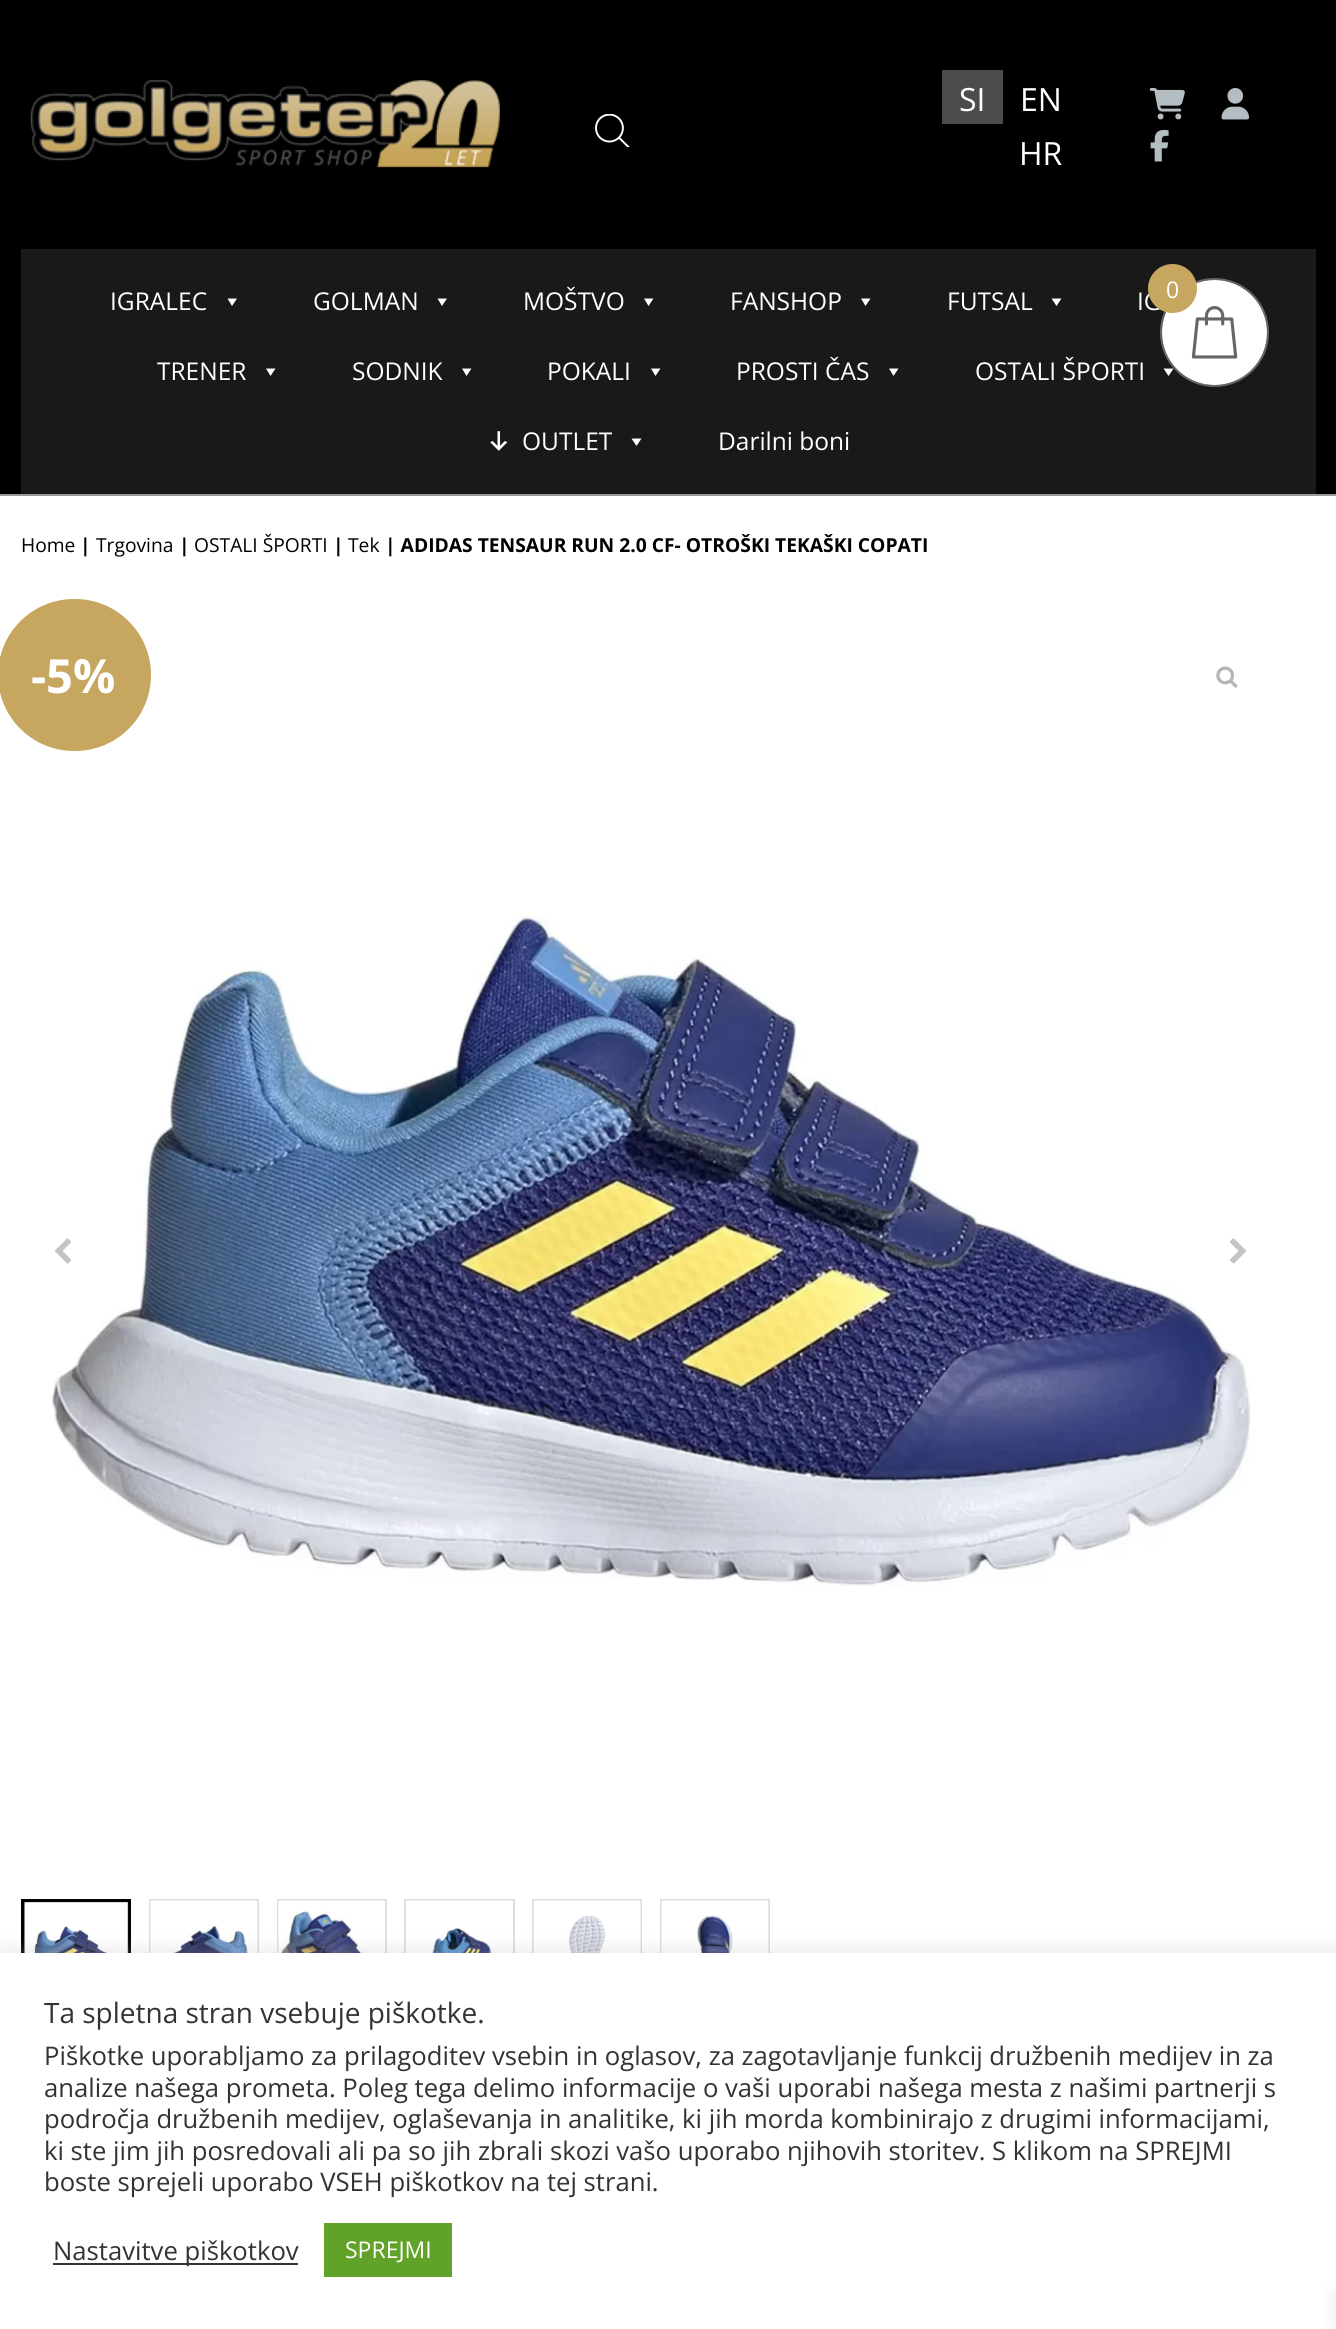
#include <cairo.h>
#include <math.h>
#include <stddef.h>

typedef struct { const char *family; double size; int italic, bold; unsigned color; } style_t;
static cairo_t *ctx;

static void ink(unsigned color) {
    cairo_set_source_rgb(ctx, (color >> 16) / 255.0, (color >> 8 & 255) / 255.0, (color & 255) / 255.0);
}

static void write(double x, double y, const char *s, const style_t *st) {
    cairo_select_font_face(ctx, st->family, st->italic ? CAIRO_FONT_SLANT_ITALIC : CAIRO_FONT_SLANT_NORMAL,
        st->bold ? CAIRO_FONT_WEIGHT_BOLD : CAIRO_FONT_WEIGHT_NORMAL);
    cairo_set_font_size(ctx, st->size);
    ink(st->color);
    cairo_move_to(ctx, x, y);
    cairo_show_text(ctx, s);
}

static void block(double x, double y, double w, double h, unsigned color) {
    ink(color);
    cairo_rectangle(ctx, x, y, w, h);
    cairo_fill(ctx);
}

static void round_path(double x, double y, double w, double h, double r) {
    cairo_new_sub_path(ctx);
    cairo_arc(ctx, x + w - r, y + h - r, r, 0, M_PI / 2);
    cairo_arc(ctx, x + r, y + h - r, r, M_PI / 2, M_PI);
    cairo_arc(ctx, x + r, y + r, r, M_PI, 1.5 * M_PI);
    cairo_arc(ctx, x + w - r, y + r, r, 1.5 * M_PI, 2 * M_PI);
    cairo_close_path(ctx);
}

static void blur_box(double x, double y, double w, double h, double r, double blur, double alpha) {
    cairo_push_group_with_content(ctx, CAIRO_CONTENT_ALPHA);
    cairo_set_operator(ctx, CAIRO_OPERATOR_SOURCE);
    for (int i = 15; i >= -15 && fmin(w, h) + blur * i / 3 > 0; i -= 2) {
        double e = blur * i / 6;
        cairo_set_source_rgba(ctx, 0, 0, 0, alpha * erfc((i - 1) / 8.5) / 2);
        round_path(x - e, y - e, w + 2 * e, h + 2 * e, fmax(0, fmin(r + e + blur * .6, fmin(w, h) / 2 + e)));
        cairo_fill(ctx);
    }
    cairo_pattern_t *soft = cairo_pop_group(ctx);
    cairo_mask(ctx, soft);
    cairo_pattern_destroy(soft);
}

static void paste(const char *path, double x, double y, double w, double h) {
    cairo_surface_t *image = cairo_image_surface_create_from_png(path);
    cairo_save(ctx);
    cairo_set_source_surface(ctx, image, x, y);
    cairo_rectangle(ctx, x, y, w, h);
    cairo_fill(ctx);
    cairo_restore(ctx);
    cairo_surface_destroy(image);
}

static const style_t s1 = {"Open Sans", 32, 0, 0, 0xffffff};
static const style_t s2 = {"Open Sans", 24.5, 0, 0, 0xffffff};
static const style_t s3 = {"Open Sans", 23, 0, 0, 0xffffff};
static const style_t s4 = {"Open Sans", 19.25, 0, 0, 0x000000};
static const style_t s5 = {"Open Sans", 19.25, 0, 1, 0x000000};
static const style_t s6 = {"Open Sans", 47, 0, 1, 0xffffff};
static const style_t s7 = {"Open Sans", 28, 0, 0, 0x333333};
static const style_t s8 = {"Open Sans", 25.65, 0, 0, 0x333333};

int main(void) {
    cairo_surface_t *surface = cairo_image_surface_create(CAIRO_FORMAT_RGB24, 1336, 2329);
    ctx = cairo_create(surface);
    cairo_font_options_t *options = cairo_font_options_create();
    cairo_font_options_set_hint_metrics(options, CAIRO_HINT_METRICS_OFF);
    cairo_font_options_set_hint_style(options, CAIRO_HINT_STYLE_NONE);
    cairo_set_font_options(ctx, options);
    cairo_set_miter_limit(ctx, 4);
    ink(0xffffff);
    cairo_paint(ctx);
    block(0, 0, 1336, 494, 0x000000);
    block(0, 494, 1336, 2, 0x999999);
    paste("pic1.png", 30, 80, 470, 88);
    paste("pic2.png", 595, 114, 35, 33);
    block(942, 70, 61, 54, 0x4c4c4c);
    write(959, 111, "SI", &s1);
    write(1020, 111, "EN", &s1);
    write(1019, 165, "HR", &s1);
    paste("pic3.png", 1149, 87, 36, 33);
    paste("pic4.png", 1221, 87, 29, 33);
    paste("pic5.png", 1150, 129, 19, 33);
    block(21, 249, 1295, 245, 0x191919);
    write(110, 310, "IGRALEC", &s2);
    cairo_new_path(ctx);
    cairo_move_to(ctx, 237, 298.5);
    cairo_line_to(ctx, 232, 306);
    cairo_line_to(ctx, 227.5, 298.5);
    cairo_close_path(ctx);
    cairo_fill(ctx);
    write(313, 310, "GOLMAN", &s2);
    cairo_new_path(ctx);
    cairo_move_to(ctx, 447, 298.5);
    cairo_line_to(ctx, 442, 306);
    cairo_line_to(ctx, 437.5, 298.5);
    cairo_close_path(ctx);
    cairo_fill(ctx);
    write(523, 310, "MOŠTVO", &s2);
    cairo_new_path(ctx);
    cairo_move_to(ctx, 653.5, 298.5);
    cairo_line_to(ctx, 648.5, 306);
    cairo_line_to(ctx, 644, 298.5);
    cairo_close_path(ctx);
    cairo_fill(ctx);
    write(730, 310, "FANSHOP", &s2);
    cairo_new_path(ctx);
    cairo_move_to(ctx, 870.5, 298.5);
    cairo_line_to(ctx, 865.5, 306);
    cairo_line_to(ctx, 861, 298.5);
    cairo_close_path(ctx);
    cairo_fill(ctx);
    write(947, 310, "FUTSAL", &s2);
    cairo_new_path(ctx);
    cairo_move_to(ctx, 1061.5, 298.5);
    cairo_line_to(ctx, 1056.5, 306);
    cairo_line_to(ctx, 1051.5, 298.5);
    cairo_close_path(ctx);
    cairo_fill(ctx);
    write(1137, 310, "IG", &s2);
    write(157, 380, "TRENER", &s2);
    cairo_new_path(ctx);
    cairo_move_to(ctx, 275.5, 368.5);
    cairo_line_to(ctx, 270.5, 376);
    cairo_line_to(ctx, 266, 368.5);
    cairo_close_path(ctx);
    cairo_fill(ctx);
    write(352, 380, "SODNIK", &s2);
    cairo_new_path(ctx);
    cairo_move_to(ctx, 471.5, 368.5);
    cairo_line_to(ctx, 466.5, 376);
    cairo_line_to(ctx, 462, 368.5);
    cairo_close_path(ctx);
    cairo_fill(ctx);
    write(547, 380, "POKALI", &s2);
    cairo_new_path(ctx);
    cairo_move_to(ctx, 660.5, 368.5);
    cairo_line_to(ctx, 655.5, 376);
    cairo_line_to(ctx, 651, 368.5);
    cairo_close_path(ctx);
    cairo_fill(ctx);
    write(736, 380, "PROSTI ČAS", &s2);
    cairo_new_path(ctx);
    cairo_move_to(ctx, 898.5, 368.5);
    cairo_line_to(ctx, 893.5, 376);
    cairo_line_to(ctx, 889, 368.5);
    cairo_close_path(ctx);
    cairo_fill(ctx);
    write(975, 380, "OSTALI ŠPORTI", &s2);
    cairo_new_path(ctx);
    cairo_move_to(ctx, 1173.5, 368.5);
    cairo_line_to(ctx, 1168.5, 376);
    cairo_line_to(ctx, 1163.5, 368.5);
    cairo_close_path(ctx);
    cairo_fill(ctx);
    paste("pic6.png", 490, 431, 18, 20);
    write(522, 450, "OUTLET", &s2);
    cairo_new_path(ctx);
    cairo_move_to(ctx, 641.5, 438.5);
    cairo_line_to(ctx, 636.5, 446);
    cairo_line_to(ctx, 631.5, 438.5);
    cairo_close_path(ctx);
    cairo_fill(ctx);
    write(718, 450, "Darilni boni", &s2);
    cairo_new_path(ctx);
    cairo_arc(ctx, 1214.5, 332.5, 53.5, 0, 2 * M_PI);
    ink(0x666666);
    cairo_stroke(ctx);
    ink(0xffffff);
    cairo_arc(ctx, 1214.5, 332.5, 52.5, 0, 2 * M_PI);
    cairo_fill(ctx);
    paste("pic7.png", 1191, 306, 47, 53);
    ink(0xc7a760);
    cairo_arc(ctx, 1172.5, 288.5, 24.5, 0, 2 * M_PI);
    cairo_fill(ctx);
    write(1166, 298, "0", &s3);
    cairo_rectangle(ctx, 23, 1901, 106, 106);
    ink(0x000000);
    cairo_set_line_width(ctx, 4);
    cairo_stroke(ctx);
    cairo_rectangle(ctx, 150, 1900, 108, 108);
    ink(0xdddddd);
    cairo_set_line_width(ctx, 2);
    cairo_stroke(ctx);
    cairo_rectangle(ctx, 278, 1900, 108, 108);
    cairo_stroke(ctx);
    cairo_rectangle(ctx, 405, 1900, 109, 108);
    cairo_stroke(ctx);
    cairo_rectangle(ctx, 533, 1900, 108, 108);
    cairo_stroke(ctx);
    cairo_rectangle(ctx, 661, 1900, 108, 108);
    cairo_stroke(ctx);
    paste("pic12.png", 24, 1902, 105, 51);
    paste("pic13.png", 150, 1900, 108, 53);
    paste("pic14.png", 278, 1900, 108, 53);
    paste("pic15.png", 405, 1900, 108, 53);
    paste("pic16.png", 533, 1900, 108, 53);
    paste("pic17.png", 661, 1900, 108, 53);
    ink(0xacabab);
    blur_box(0, 1951, 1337, 377, 0, 9, 0.3);
    block(0, 1953, 1336, 376, 0xffffff);
    ink(0x000000);
    blur_box(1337, 2293, 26, 35, 0, 9, 0.1);
    write(21, 552, "Home", &s4);
    write(80, 552, "|", &s5);
    write(96, 552, "Trgovina", &s4);
    write(179, 552, "|", &s5);
    write(194, 552, "OSTALI ŠPORTI", &s4);
    write(333, 552, "|", &s5);
    write(348, 552, "Tek", &s4);
    write(385, 552, "| ADIDAS TENSAUR RUN 2.0 CF- OTROŠKI TEKAŠKI COPATI", &s5);
    ink(0xc7a760);
    round_path(-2, 599, 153, 152, 76);
    cairo_fill(ctx);
    write(31, 693, "-5%", &s6);
    paste("pic8.png", 1216, 666, 22, 22);
    paste("pic9.png", 51, 913, 1200, 674);
    paste("pic10.png", 55, 1238, 16, 26);
    paste("pic11.png", 1230, 1238, 16, 26);
    write(44, 2023, "Ta spletna stran vsebuje piškotke.", &s7);
    write(44, 2065, "Piškotke uporabljamo za prilagoditev vsebin in oglasov, za zagotavljanje funkcij družbenih medijev in za", &s8);
    write(44, 2097, "analize našega prometa. Poleg tega delimo informacije o vaši uporabi našega mesta z našimi partnerji s", &s8);
    write(44, 2128, "področja družbenih medijev, oglaševanja in analitike, ki jih morda kombinirajo z drugimi informacijami,", &s8);
    write(44, 2160, "ki ste jim jih posredovali ali pa so jih zbrali skozi vašo uporabo njihovih storitev. S klikom na SPREJMI", &s8);
    write(44, 2191, "boste sprejeli uporabo VSEH piškotkov na tej strani.", &s8);
    block(53, 2263, 245, 2, 0x333333);
    write(53, 2260, "Nastavitve piškotkov", &s8);
    block(324, 2223, 128, 54, 0x61a229);
    write(345, 2258, "SPREJMI", &s3);
    cairo_surface_write_to_png(surface, "screenshot.png");
    cairo_font_options_destroy(options);
    cairo_destroy(ctx);
    cairo_surface_destroy(surface);
    return 0;
}
